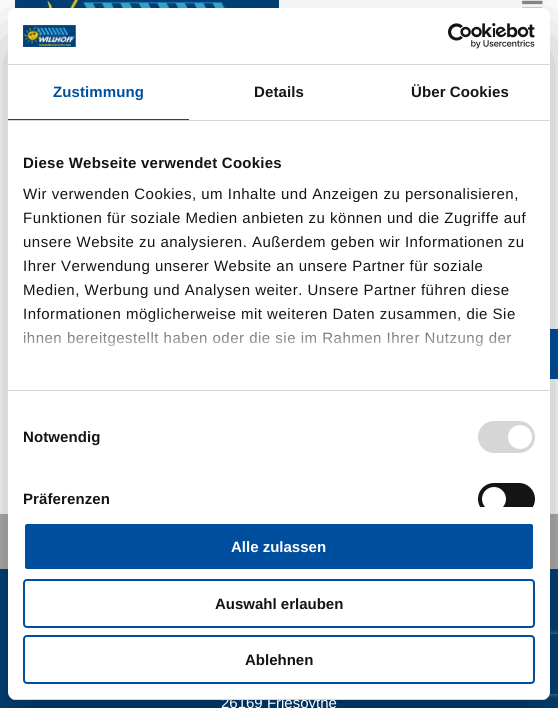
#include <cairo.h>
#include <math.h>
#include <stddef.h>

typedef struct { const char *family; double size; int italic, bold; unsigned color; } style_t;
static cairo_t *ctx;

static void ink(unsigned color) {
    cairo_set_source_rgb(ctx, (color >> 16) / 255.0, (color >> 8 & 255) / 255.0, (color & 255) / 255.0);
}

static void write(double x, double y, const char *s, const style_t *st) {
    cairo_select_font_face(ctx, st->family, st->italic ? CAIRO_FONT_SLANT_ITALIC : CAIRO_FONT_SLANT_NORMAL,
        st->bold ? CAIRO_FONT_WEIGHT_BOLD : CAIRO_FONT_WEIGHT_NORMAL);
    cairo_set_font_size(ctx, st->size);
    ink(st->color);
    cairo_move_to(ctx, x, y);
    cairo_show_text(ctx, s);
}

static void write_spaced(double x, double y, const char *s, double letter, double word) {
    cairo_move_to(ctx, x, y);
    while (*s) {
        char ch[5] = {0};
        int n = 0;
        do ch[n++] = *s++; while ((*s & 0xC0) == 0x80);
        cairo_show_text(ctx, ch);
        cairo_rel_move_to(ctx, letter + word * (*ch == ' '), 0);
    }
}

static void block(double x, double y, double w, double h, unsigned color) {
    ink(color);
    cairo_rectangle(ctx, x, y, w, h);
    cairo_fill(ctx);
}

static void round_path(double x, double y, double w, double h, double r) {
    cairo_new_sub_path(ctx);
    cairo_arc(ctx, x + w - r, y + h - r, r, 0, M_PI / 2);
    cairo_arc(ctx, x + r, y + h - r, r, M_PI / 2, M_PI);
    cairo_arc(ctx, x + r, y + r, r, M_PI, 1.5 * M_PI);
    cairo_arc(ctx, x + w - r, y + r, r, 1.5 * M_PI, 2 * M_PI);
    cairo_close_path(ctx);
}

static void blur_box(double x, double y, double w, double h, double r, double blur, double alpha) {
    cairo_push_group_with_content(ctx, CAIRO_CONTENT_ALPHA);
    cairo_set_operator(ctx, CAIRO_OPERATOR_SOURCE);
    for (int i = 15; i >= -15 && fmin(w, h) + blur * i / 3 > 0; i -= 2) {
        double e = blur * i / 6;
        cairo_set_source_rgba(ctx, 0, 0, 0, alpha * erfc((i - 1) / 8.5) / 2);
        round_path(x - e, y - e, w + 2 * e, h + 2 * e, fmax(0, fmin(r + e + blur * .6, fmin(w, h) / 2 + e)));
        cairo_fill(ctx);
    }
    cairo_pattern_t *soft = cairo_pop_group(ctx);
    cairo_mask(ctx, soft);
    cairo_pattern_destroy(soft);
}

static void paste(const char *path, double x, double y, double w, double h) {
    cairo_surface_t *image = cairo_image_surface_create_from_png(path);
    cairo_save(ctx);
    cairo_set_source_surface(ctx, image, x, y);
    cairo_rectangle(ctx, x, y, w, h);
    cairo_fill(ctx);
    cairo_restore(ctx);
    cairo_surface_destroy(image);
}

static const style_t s1 = {"Liberation Sans", 15, 0, 0, 0xffffff};
static const style_t s2 = {"Liberation Sans", 15, 0, 1, 0xffffff};
static const style_t s3 = {"Liberation Sans", 15, 0, 1, 0x141414};

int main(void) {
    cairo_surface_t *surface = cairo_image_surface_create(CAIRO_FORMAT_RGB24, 558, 708);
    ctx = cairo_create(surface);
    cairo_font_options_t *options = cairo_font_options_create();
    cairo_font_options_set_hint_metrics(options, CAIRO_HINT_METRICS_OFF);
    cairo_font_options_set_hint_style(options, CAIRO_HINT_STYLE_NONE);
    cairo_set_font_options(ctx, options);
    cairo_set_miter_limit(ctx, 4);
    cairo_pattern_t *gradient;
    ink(0xffffff);
    cairo_paint(ctx);
    paste("pic1.png", 15, 0, 264, 9);
    paste("pic2.png", 522, 0, 21, 9);
    block(550, 329, 8, 50, 0x004f9f);
    block(0, 569, 558, 139, 0x014278);
    block(0, 514, 558, 55, 0xb0b0b0);
    ink(0x000000);
    blur_box(8, 40, 542, 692, 8, 34, 0.3);
    cairo_save(ctx);
    cairo_set_fill_rule(ctx, CAIRO_FILL_RULE_EVEN_ODD);
    cairo_new_path(ctx);
    cairo_move_to(ctx, 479, 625);
    cairo_line_to(ctx, 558, 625);
    cairo_line_to(ctx, 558, 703);
    cairo_line_to(ctx, 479, 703);
    cairo_close_path(ctx);
    cairo_move_to(ctx, 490, 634);
    cairo_line_to(ctx, 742, 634);
    cairo_curve_to(ctx, 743, 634, 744, 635, 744, 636);
    cairo_line_to(ctx, 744, 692);
    cairo_curve_to(ctx, 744, 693, 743, 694, 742, 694);
    cairo_line_to(ctx, 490, 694);
    cairo_curve_to(ctx, 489, 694, 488, 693, 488, 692);
    cairo_line_to(ctx, 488, 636);
    cairo_curve_to(ctx, 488, 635, 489, 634, 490, 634);
    cairo_close_path(ctx);
    cairo_clip(ctx);
    ink(0x808080);
    blur_box(488, 634, 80, 60, 2, 2.5, 1);
    cairo_restore(ctx);
    ink(0xffffff);
    round_path(8, 8, 542, 692, 8);
    cairo_fill(ctx);
    block(8, 64, 542, 1, 0xd6d6d6);
    paste("pic3.png", 23, 25, 53, 22);
    paste("pic4.png", 448, 23, 87, 26);
    block(8, 120, 542, 1, 0xd6d6d6);
    block(8, 119, 181, 1, 0x004f9f);
    cairo_select_font_face(ctx, "Liberation Sans", CAIRO_FONT_SLANT_NORMAL, CAIRO_FONT_WEIGHT_BOLD);
    cairo_set_font_size(ctx, 15);
    write_spaced(53, 97, "Zustimmung", 0.1, 0);
    ink(0x141414);
    write_spaced(254, 97, "Details", 0.1, 0);
    write_spaced(411, 97, "Über Cookies", 0.1, 0);
    block(8, 390, 542, 1, 0xd6d6d6);
    ink(0x141414);
    write_spaced(23, 168, "Diese Webseite verwendet Cookies", 0.25, 0);
    cairo_select_font_face(ctx, "Liberation Sans", CAIRO_FONT_SLANT_NORMAL, CAIRO_FONT_WEIGHT_NORMAL);
    write_spaced(23, 199, "Wir verwenden Cookies, um Inhalte und Anzeigen zu personalisieren,", 0.5, 0);
    write_spaced(23, 223, "Funktionen für soziale Medien anbieten zu können und die Zugriffe auf", 0.5, 0);
    write_spaced(23, 247, "unsere Website zu analysieren. Außerdem geben wir Informationen zu", 0.5, 0);
    write_spaced(23, 271, "Ihrer Verwendung unserer Website an unsere Partner für soziale", 0.5, 0);
    write_spaced(23, 295, "Medien, Werbung und Analysen weiter. Unsere Partner führen diese", 0.5, 0);
    write_spaced(23, 319, "Informationen möglicherweise mit weiteren Daten zusammen, die Sie", 0.5, 0);
    write_spaced(23, 343, "ihnen bereitgestellt haben oder die sie im Rahmen Ihrer Nutzung der", 0.5, 0);
    gradient = cairo_pattern_create_linear(273, 390, 273, 315);
    cairo_pattern_add_color_stop_rgba(gradient, 0, 1, 1, 1, 1);
    cairo_pattern_add_color_stop_rgba(gradient, 0.5, 1, 1, 1, 0.8);
    cairo_pattern_add_color_stop_rgba(gradient, 1, 1, 1, 1, 0);
    cairo_set_source(ctx, gradient);
    cairo_pattern_destroy(gradient);
    cairo_rectangle(ctx, 24, 316, 490, 31);
    cairo_fill(ctx);
    cairo_select_font_face(ctx, "Liberation Sans", CAIRO_FONT_SLANT_NORMAL, CAIRO_FONT_WEIGHT_BOLD);
    ink(0x141414);
    write_spaced(23, 442, "Notwendig", 0.1, 0);
    ink(0xd6d6d6);
    round_path(478, 421, 57, 32, 16);
    cairo_fill(ctx);
    ink(0xffffff);
    cairo_arc(ctx, 520, 437, 12, 0, 2 * M_PI);
    cairo_fill(ctx);
    ink(0x141414);
    write_spaced(23, 504, "Präferenzen", 0.1, 0);
    cairo_save(ctx);
    cairo_rectangle(ctx, 8, 121, 542, 386);
    cairo_clip(ctx);
    round_path(478, 483, 57, 32, 16);
    cairo_fill(ctx);
    ink(0xffffff);
    cairo_arc(ctx, 494, 499, 12, 0, 2 * M_PI);
    cairo_fill(ctx);
    cairo_restore(ctx);
    write(221, 708, "26169 Friesoythe", &s1);
    cairo_save(ctx);
    round_path(8, 8, 542, 692, 8);
    cairo_clip(ctx);
    block(8, 699, 542, 1, 0xd6d6d6);
    cairo_restore(ctx);
    ink(0x004f9f);
    round_path(24, 523, 510, 47, 3);
    cairo_fill_preserve(ctx);
    ink(0xffffff);
    cairo_stroke(ctx);
    write(231, 552, "Alle zulassen", &s2);
    round_path(24, 580, 510, 47, 3);
    ink(0x004f9f);
    cairo_stroke(ctx);
    write(215, 609, "Auswahl erlauben", &s3);
    round_path(24, 636, 510, 47, 3);
    ink(0x004f9f);
    cairo_stroke(ctx);
    write(245, 665, "Ablehnen", &s3);
    cairo_surface_write_to_png(surface, "screenshot.png");
    cairo_font_options_destroy(options);
    cairo_destroy(ctx);
    cairo_surface_destroy(surface);
    return 0;
}
